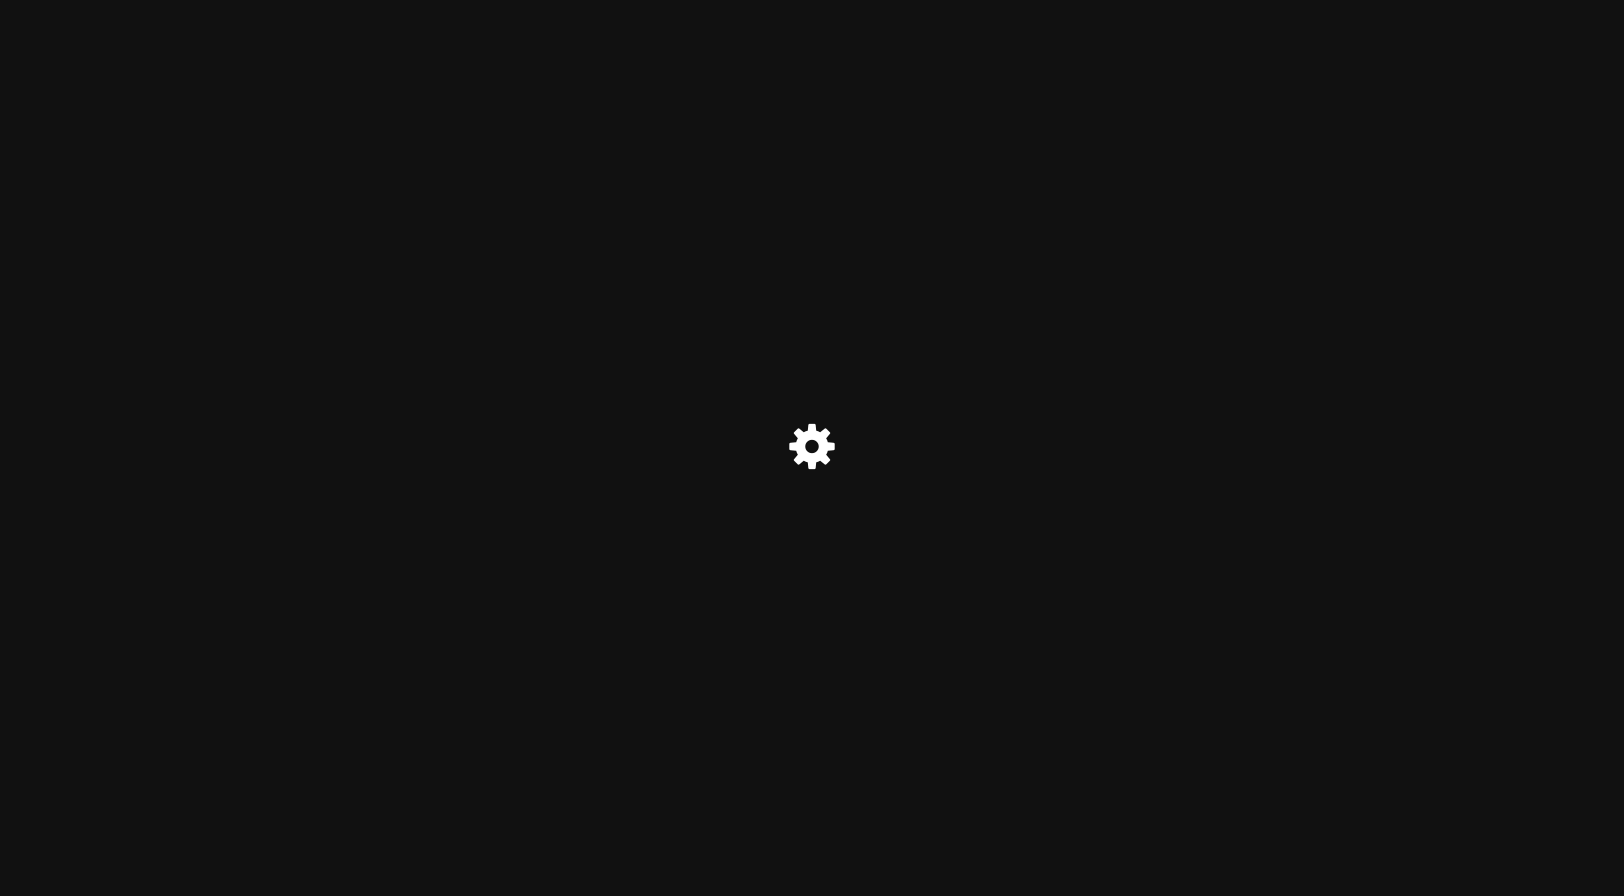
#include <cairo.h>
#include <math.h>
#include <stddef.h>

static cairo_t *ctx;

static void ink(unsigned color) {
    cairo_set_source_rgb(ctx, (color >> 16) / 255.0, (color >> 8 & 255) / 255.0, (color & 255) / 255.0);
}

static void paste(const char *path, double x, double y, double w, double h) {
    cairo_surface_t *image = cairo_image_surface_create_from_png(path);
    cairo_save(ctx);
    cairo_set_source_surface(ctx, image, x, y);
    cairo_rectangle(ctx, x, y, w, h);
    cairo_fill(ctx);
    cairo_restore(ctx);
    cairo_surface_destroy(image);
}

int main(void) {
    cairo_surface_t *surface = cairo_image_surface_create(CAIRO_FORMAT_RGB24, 1624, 896);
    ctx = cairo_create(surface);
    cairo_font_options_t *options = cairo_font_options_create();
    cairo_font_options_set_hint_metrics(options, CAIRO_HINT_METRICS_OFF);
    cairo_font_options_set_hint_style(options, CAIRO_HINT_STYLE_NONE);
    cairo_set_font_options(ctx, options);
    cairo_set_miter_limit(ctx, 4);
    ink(0x111111);
    cairo_paint(ctx);
    paste("pic1.png", 789, 423, 46, 47);
    cairo_surface_write_to_png(surface, "screenshot.png");
    cairo_font_options_destroy(options);
    cairo_destroy(ctx);
    cairo_surface_destroy(surface);
    return 0;
}
